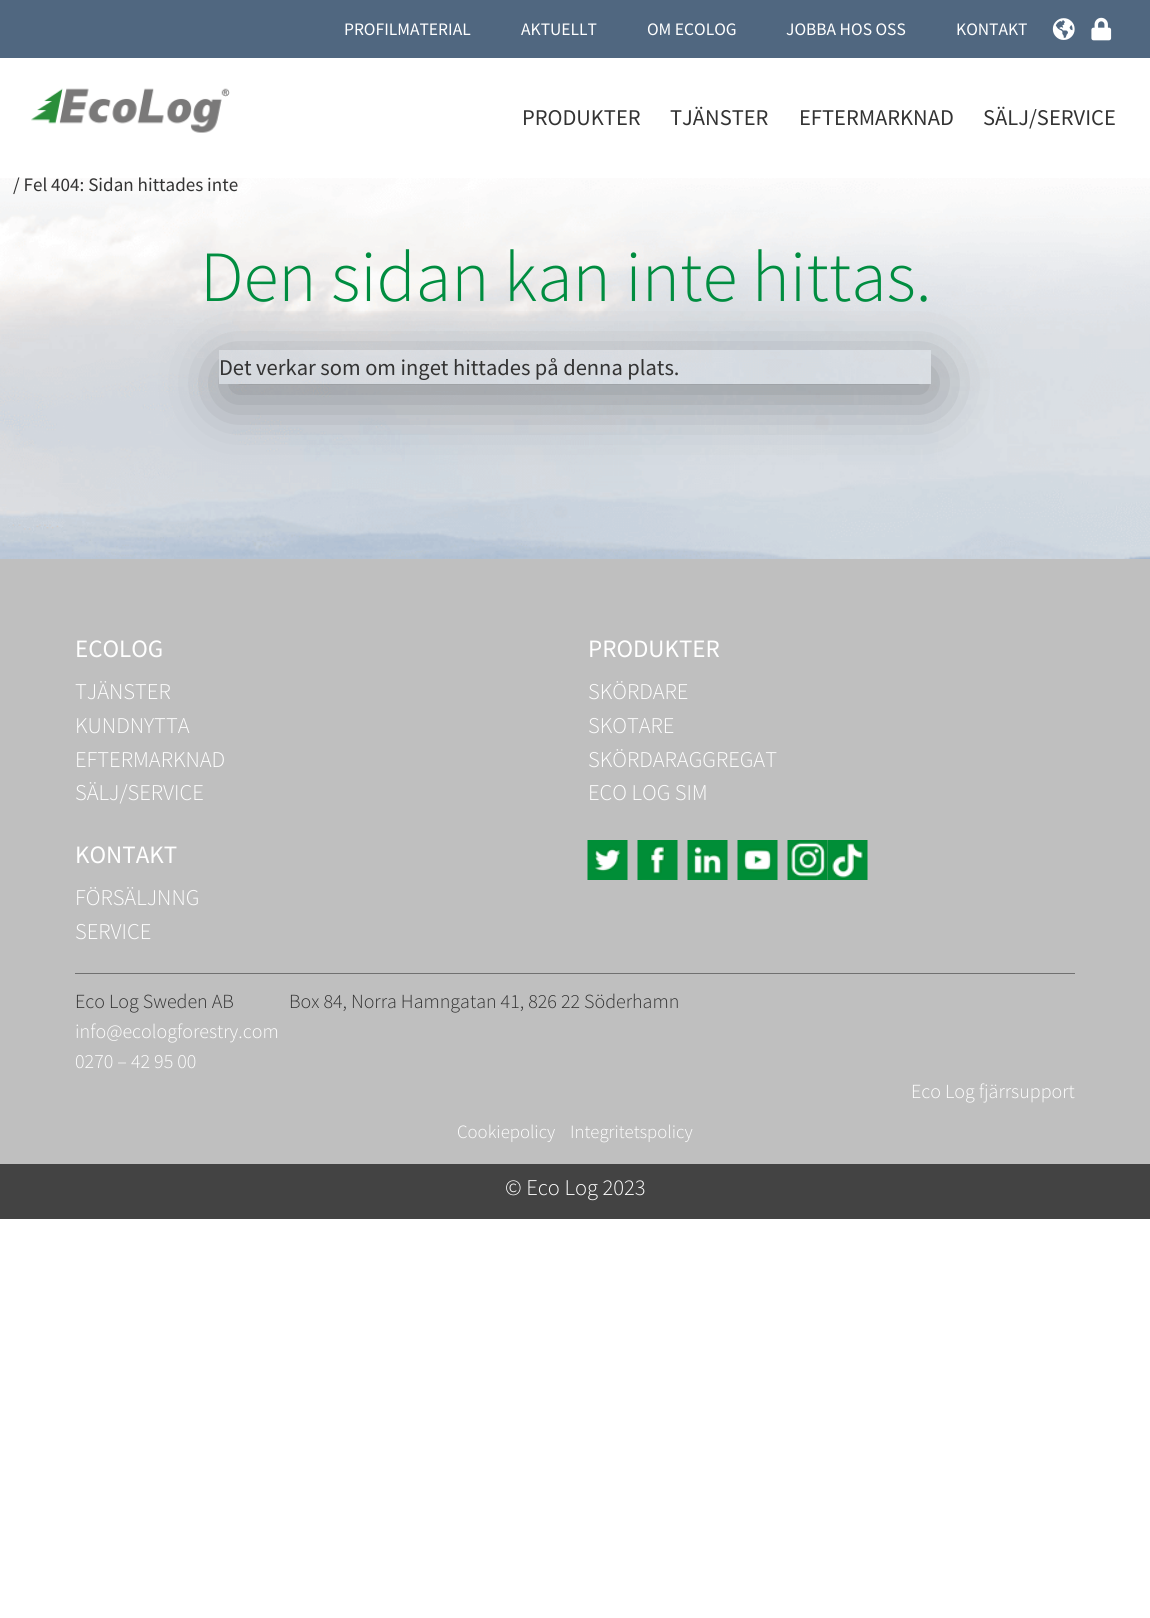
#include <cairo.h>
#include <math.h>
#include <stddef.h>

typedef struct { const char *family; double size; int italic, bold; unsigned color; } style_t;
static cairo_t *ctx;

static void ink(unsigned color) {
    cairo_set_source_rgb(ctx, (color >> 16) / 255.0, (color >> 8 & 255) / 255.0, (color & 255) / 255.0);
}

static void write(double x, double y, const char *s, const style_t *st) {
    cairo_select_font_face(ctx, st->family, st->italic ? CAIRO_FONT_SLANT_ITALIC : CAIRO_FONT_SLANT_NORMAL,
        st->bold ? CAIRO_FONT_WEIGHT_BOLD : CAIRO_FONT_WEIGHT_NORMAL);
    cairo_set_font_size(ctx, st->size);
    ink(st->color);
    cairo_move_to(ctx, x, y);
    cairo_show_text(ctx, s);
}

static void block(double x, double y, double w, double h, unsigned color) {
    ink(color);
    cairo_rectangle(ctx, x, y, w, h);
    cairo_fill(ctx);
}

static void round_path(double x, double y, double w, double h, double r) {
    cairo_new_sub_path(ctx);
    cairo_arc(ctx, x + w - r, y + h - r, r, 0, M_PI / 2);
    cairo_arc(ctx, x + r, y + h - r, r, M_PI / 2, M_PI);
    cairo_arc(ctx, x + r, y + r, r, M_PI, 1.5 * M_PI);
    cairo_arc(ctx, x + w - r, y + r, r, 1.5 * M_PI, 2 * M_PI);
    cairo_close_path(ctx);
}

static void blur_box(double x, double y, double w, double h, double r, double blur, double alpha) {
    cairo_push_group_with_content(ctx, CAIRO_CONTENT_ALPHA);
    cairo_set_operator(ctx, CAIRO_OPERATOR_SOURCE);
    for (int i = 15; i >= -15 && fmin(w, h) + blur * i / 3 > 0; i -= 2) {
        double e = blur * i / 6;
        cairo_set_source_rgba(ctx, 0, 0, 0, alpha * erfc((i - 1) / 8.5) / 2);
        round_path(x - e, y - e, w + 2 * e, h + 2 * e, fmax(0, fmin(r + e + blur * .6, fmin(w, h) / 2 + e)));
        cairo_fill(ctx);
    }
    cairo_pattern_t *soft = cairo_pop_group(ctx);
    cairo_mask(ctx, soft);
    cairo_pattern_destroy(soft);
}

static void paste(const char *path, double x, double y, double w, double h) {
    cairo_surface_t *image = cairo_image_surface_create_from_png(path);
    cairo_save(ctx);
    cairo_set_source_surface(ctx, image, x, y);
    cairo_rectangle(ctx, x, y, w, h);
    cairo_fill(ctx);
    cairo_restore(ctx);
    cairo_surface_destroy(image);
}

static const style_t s1 = {"Source Sans Pro", 17.5, 0, 0, 0xffffff};
static const style_t s2 = {"Source Sans Pro", 22.5, 0, 0, 0x333333};
static const style_t s3 = {"Source Sans Pro", 19.1, 0, 0, 0x333333};
static const style_t s4 = {"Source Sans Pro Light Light", 72, 0, 0, 0x008d40};
static const style_t s5 = {"Source Sans Pro", 25, 0, 0, 0xffffff};
static const style_t s6 = {"Source Sans Pro Light Light", 22.5, 0, 0, 0xffffff};
static const style_t s7 = {"Source Sans Pro Light Light", 20, 0, 0, 0x333333};
static const style_t s8 = {"Source Sans Pro Light Light", 20, 0, 0, 0xffffff};
static const style_t s9 = {"Source Sans Pro Light Light", 18.75, 0, 0, 0xffffff};

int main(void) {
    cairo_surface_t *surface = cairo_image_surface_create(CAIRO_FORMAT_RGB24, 1150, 1618);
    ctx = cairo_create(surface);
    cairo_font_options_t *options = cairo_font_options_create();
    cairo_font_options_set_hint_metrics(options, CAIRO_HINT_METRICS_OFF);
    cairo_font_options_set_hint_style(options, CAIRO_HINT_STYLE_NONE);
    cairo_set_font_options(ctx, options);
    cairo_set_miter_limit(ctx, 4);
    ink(0xffffff);
    cairo_paint(ctx);
    paste("pic1.png", 0, 178, 1150, 381);
    block(0, 0, 1150, 58, 0x506780);
    write(344, 35, "PROFILMATERIAL", &s1);
    write(521, 35, "AKTUELLT", &s1);
    write(647, 35, "OM ECOLOG", &s1);
    write(786, 35, "JOBBA HOS OSS", &s1);
    write(956, 35, "KONTAKT", &s1);
    paste("pic2.png", 1052, 18, 23, 22);
    paste("pic3.png", 1091, 17, 21, 24);
    paste("pic4.png", 31, 88, 199, 45);
    write(522, 125, "PRODUKTER", &s2);
    write(670, 125, "TJÄNSTER", &s2);
    write(799, 125, "EFTERMARKNAD", &s2);
    write(983, 125, "SÄLJ/SERVICE", &s2);
    write(13, 191, "/ Fel 404: Sidan hittades inte", &s3);
    cairo_save(ctx);
    cairo_set_fill_rule(ctx, CAIRO_FILL_RULE_EVEN_ODD);
    cairo_new_path(ctx);
    cairo_move_to(ctx, 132, 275);
    cairo_line_to(ctx, 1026, 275);
    cairo_line_to(ctx, 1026, 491);
    cairo_line_to(ctx, 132, 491);
    cairo_close_path(ctx);
    cairo_move_to(ctx, 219, 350);
    cairo_line_to(ctx, 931, 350);
    cairo_line_to(ctx, 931, 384);
    cairo_line_to(ctx, 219, 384);
    cairo_close_path(ctx);
    cairo_clip(ctx);
    ink(0x000000);
    blur_box(223, 366, 712, 34, 0, 30, 0.34);
    cairo_restore(ctx);
    write(200, 301, "Den sidan kan inte hittas.", &s4);
    write(219, 375, "Det verkar som om inget hittades på denna plats.", &s2);
    block(0, 559, 1150, 605, 0xbfbfbf);
    write(75, 657, "ECOLOG", &s5);
    write(75, 699, "TJÄNSTER", &s6);
    write(75, 733, "KUNDNYTTA", &s6);
    write(75, 767, "EFTERMARKNAD", &s6);
    write(75, 800, "SÄLJ/SERVICE", &s6);
    write(588, 657, "PRODUKTER", &s5);
    write(588, 699, "SKÖRDARE", &s6);
    write(588, 733, "SKOTARE", &s6);
    write(588, 767, "SKÖRDARAGGREGAT", &s6);
    write(588, 800, "ECO LOG SIM", &s6);
    write(75, 863, "KONTAKT", &s5);
    write(75, 905, "FÖRSÄLJNNG", &s6);
    write(75, 939, "SERVICE", &s6);
    paste("pic5.png", 587, 840, 41, 40);
    paste("pic6.png", 637, 840, 41, 40);
    paste("pic7.png", 687, 840, 41, 40);
    paste("pic8.png", 737, 840, 41, 40);
    paste("pic9.png", 787, 840, 41, 40);
    paste("pic10.png", 827, 840, 41, 40);
    block(75, 973, 1000, 1, 0x707070);
    write(75, 1008, "Eco Log Sweden AB", &s7);
    write(289, 1008, "Box 84, Norra Hamngatan 41, 826 22 Söderhamn", &s7);
    write(75, 1038, "info@ecologforestry.com", &s8);
    write(75, 1068, "0270 – 42 95 00", &s8);
    write(911, 1098, "Eco Log fjärrsupport", &s8);
    write(457, 1138, "Cookiepolicy", &s9);
    write(570, 1138, "Integritetspolicy", &s9);
    block(0, 1164, 1150, 55, 0x434343);
    write(505, 1195, "© Eco Log 2023", &s6);
    cairo_surface_write_to_png(surface, "screenshot.png");
    cairo_font_options_destroy(options);
    cairo_destroy(ctx);
    cairo_surface_destroy(surface);
    return 0;
}
